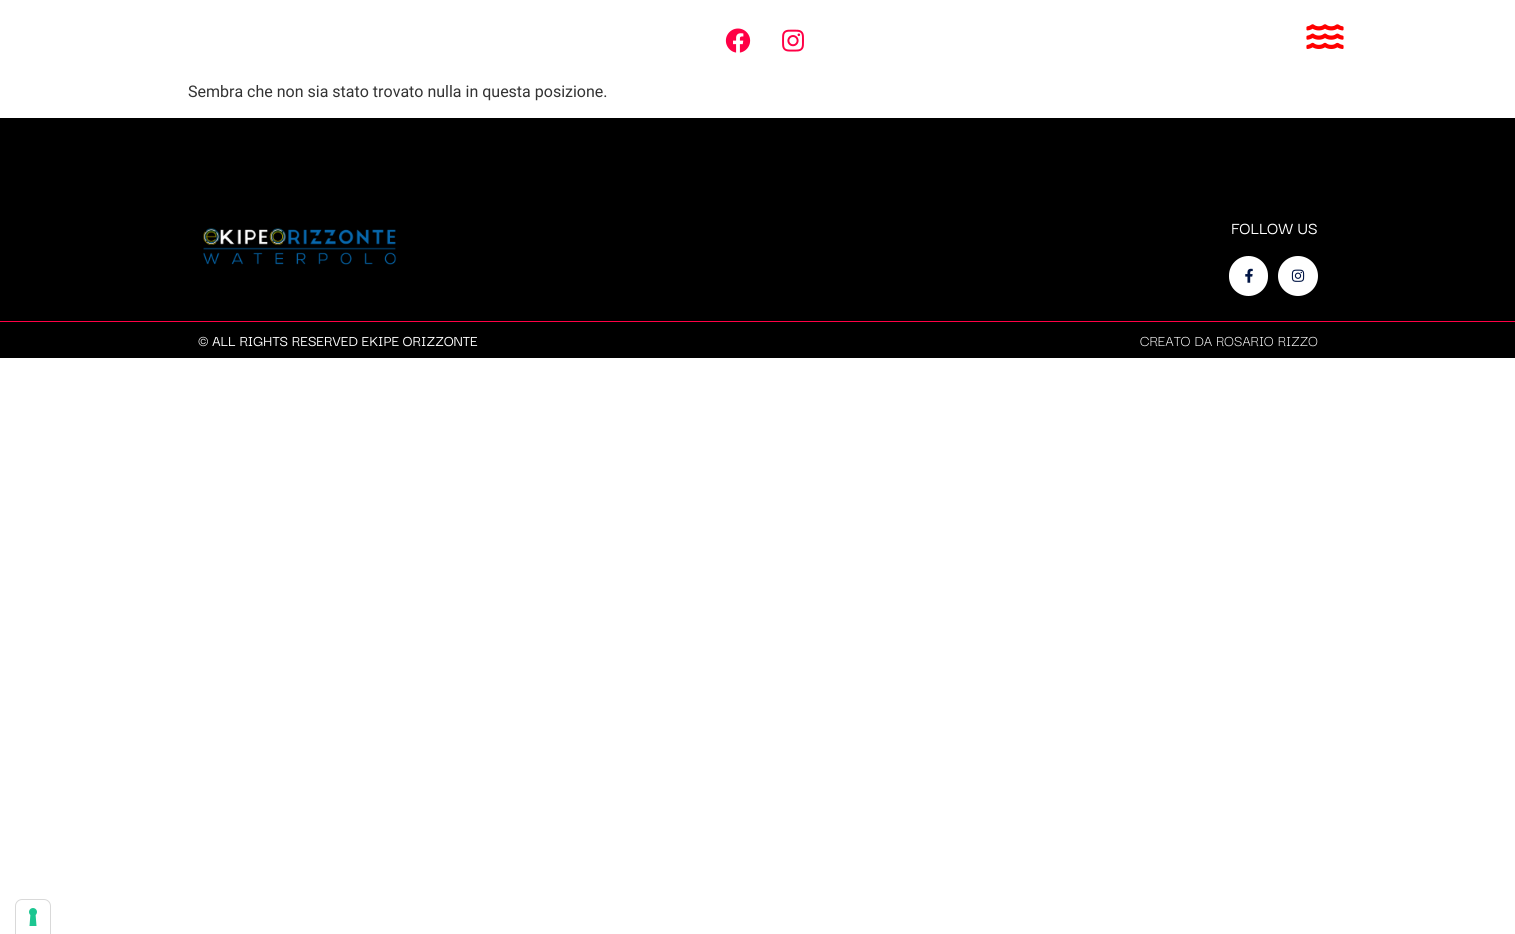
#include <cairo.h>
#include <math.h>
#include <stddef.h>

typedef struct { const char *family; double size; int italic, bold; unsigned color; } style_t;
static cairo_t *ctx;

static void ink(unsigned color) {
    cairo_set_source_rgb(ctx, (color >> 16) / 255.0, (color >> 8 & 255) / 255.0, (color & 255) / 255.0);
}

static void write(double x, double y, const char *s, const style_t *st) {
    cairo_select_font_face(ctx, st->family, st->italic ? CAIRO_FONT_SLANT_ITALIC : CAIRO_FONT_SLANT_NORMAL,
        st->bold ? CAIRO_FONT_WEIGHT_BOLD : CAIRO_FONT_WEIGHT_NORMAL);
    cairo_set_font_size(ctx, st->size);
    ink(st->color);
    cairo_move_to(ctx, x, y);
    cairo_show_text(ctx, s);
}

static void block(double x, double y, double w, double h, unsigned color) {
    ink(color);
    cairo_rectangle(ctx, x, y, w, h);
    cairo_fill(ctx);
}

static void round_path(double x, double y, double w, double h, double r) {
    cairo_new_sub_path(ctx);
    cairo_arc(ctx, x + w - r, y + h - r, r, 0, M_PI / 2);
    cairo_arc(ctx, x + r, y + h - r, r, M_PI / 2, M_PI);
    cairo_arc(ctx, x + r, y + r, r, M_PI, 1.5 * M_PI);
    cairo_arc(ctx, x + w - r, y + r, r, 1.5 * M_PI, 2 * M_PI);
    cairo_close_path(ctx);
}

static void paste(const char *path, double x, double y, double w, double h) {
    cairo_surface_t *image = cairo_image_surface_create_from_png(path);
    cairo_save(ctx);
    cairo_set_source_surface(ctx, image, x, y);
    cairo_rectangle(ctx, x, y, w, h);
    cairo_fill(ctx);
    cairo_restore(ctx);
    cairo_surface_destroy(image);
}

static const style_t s1 = {"Roboto", 16, 0, 0, 0x333333};
static const style_t s2 = {"Darker Grotesque Medium", 18, 0, 0, 0xffffff};
static const style_t s3 = {"Darker Grotesque Medium", 16, 0, 0, 0xffffff};
static const style_t s4 = {"Darker Grotesque", 16, 0, 0, 0xffffff};

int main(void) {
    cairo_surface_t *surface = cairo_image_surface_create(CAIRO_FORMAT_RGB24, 1515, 934);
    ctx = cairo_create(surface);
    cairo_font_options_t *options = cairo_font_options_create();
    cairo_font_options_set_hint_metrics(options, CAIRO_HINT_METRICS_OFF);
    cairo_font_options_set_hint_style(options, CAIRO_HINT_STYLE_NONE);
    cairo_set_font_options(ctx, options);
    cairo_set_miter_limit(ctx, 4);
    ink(0xffffff);
    cairo_paint(ctx);
    paste("pic1.png", 725, 28, 26, 25);
    paste("pic2.png", 782, 29, 22, 23);
    paste("pic3.png", 1306, 24, 38, 25);
    write(188, 97, "Sembra che non sia stato trovato nulla in questa posizione.", &s1);
    block(0, 118, 1515, 203, 0x000000);
    paste("pic4.png", 203, 228, 194, 37);
    write(1231, 234, "FOLLOW US", &s2);
    round_path(1229, 256, 39, 40, 19.5);
    cairo_fill(ctx);
    paste("pic5.png", 1245, 268, 8, 15);
    cairo_arc(ctx, 1298, 276, 20, 0, 2 * M_PI);
    cairo_fill(ctx);
    paste("pic6.png", 1291, 269, 14, 13);
    block(0, 322, 1515, 36, 0x000000);
    block(0, 321, 1515, 1, 0xff0045);
    write(198, 346, "© ALL RIGHTS RESERVED EKIPE ORIZZONTE", &s3);
    write(1140, 346, "CREATO DA ROSARIO RIZZO", &s4);
    cairo_new_path(ctx);
    cairo_move_to(ctx, 22, 899.5);
    cairo_line_to(ctx, 44, 899.5);
    cairo_curve_to(ctx, 47.5, 899.5, 50.5, 902.5, 50.5, 906);
    cairo_line_to(ctx, 50.5, 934.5);
    cairo_line_to(ctx, 15.5, 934.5);
    cairo_line_to(ctx, 15.5, 906);
    cairo_curve_to(ctx, 15.5, 902.5, 18.5, 899.5, 22, 899.5);
    cairo_close_path(ctx);
    ink(0xd9d9d9);
    cairo_set_line_width(ctx, 1);
    cairo_stroke(ctx);
    paste("pic7.png", 29, 908, 8, 18);
    cairo_surface_write_to_png(surface, "screenshot.png");
    cairo_font_options_destroy(options);
    cairo_destroy(ctx);
    cairo_surface_destroy(surface);
    return 0;
}
